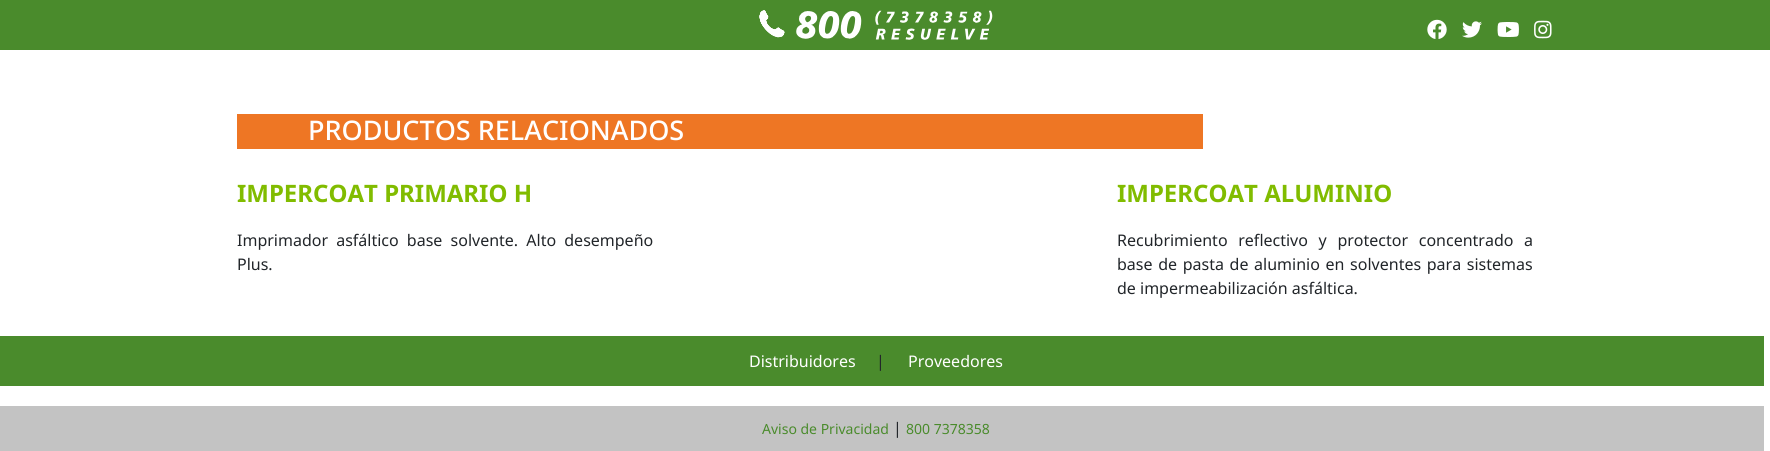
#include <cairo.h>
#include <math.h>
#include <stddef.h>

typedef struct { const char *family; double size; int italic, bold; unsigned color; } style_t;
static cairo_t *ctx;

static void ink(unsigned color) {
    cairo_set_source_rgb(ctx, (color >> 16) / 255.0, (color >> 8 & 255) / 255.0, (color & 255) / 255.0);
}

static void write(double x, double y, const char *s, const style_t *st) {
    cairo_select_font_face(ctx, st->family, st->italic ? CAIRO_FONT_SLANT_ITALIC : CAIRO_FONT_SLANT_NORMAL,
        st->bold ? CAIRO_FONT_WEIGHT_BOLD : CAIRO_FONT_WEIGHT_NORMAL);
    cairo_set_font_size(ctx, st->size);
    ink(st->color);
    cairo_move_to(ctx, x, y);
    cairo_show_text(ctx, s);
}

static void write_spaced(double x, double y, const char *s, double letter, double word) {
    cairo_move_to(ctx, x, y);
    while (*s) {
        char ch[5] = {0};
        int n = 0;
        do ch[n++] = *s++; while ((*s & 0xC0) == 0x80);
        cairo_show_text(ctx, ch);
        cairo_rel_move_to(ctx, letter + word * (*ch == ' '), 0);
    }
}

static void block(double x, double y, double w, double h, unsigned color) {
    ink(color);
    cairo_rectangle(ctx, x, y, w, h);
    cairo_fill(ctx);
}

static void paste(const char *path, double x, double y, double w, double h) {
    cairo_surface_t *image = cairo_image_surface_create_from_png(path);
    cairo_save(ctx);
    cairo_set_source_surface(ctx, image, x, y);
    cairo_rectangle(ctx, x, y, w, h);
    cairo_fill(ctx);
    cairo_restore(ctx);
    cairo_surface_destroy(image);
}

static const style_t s1 = {"Noto Sans Medium", 27, 0, 0, 0xffffff};
static const style_t s2 = {"Noto Sans", 24, 0, 1, 0x81bc00};
static const style_t s3 = {"Noto Sans", 16, 0, 0, 0x212529};
static const style_t s4 = {"Noto Sans", 16, 0, 0, 0xffffff};
static const style_t s5 = {"Noto Sans", 14, 0, 0, 0x4a8b2c};

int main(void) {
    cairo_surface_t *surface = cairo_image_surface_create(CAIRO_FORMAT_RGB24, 1770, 451);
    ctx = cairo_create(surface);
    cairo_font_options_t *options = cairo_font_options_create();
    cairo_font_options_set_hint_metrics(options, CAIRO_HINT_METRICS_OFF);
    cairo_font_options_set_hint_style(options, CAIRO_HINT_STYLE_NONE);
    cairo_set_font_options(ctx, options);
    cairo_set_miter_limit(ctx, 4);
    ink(0xffffff);
    cairo_paint(ctx);
    block(0, 0, 1770, 50, 0x4a8b2c);
    paste("pic1.png", 759, 10, 234, 30);
    paste("pic2.png", 1427, 19, 20, 20);
    paste("pic3.png", 1462, 21, 20, 17);
    paste("pic4.png", 1497, 22, 22, 15);
    paste("pic5.png", 1534, 20, 18, 19);
    block(237, 114, 966, 35, 0xee7624);
    write(308, 140, "PRODUCTOS RELACIONADOS", &s1);
    write(237, 202, "IMPERCOAT PRIMARIO H", &s2);
    cairo_select_font_face(ctx, "Noto Sans", CAIRO_FONT_SLANT_NORMAL, CAIRO_FONT_WEIGHT_NORMAL);
    cairo_set_font_size(ctx, 16);
    ink(0x212529);
    write_spaced(237, 246, "Imprimador asfáltico base solvente. Alto desempeño", 0, 4);
    write(237, 270, "Plus.", &s3);
    write(1117, 202, "IMPERCOAT ALUMINIO", &s2);
    cairo_select_font_face(ctx, "Noto Sans", CAIRO_FONT_SLANT_NORMAL, CAIRO_FONT_WEIGHT_NORMAL);
    cairo_set_font_size(ctx, 16);
    ink(0x212529);
    write_spaced(1117, 246, "Recubrimiento reflectivo y protector concentrado a", 0, 6.5);
    write_spaced(1117, 270, "base de pasta de aluminio en solventes para sistemas", 0, 1.5);
    write(1117, 294, "de impermeabilización asfáltica.", &s3);
    block(0, 336, 1764, 50, 0x4a8b2c);
    write(749, 367, "Distribuidores", &s4);
    write(876, 367, "|", &s3);
    write(908, 367, "Proveedores", &s4);
    block(0, 406, 1764, 45, 0xc3c3c3);
    write(762, 434, "Aviso de Privacidad", &s5);
    write(893, 434, "|", &s3);
    write(906, 434, "800 7378358", &s5);
    cairo_surface_write_to_png(surface, "screenshot.png");
    cairo_font_options_destroy(options);
    cairo_destroy(ctx);
    cairo_surface_destroy(surface);
    return 0;
}
